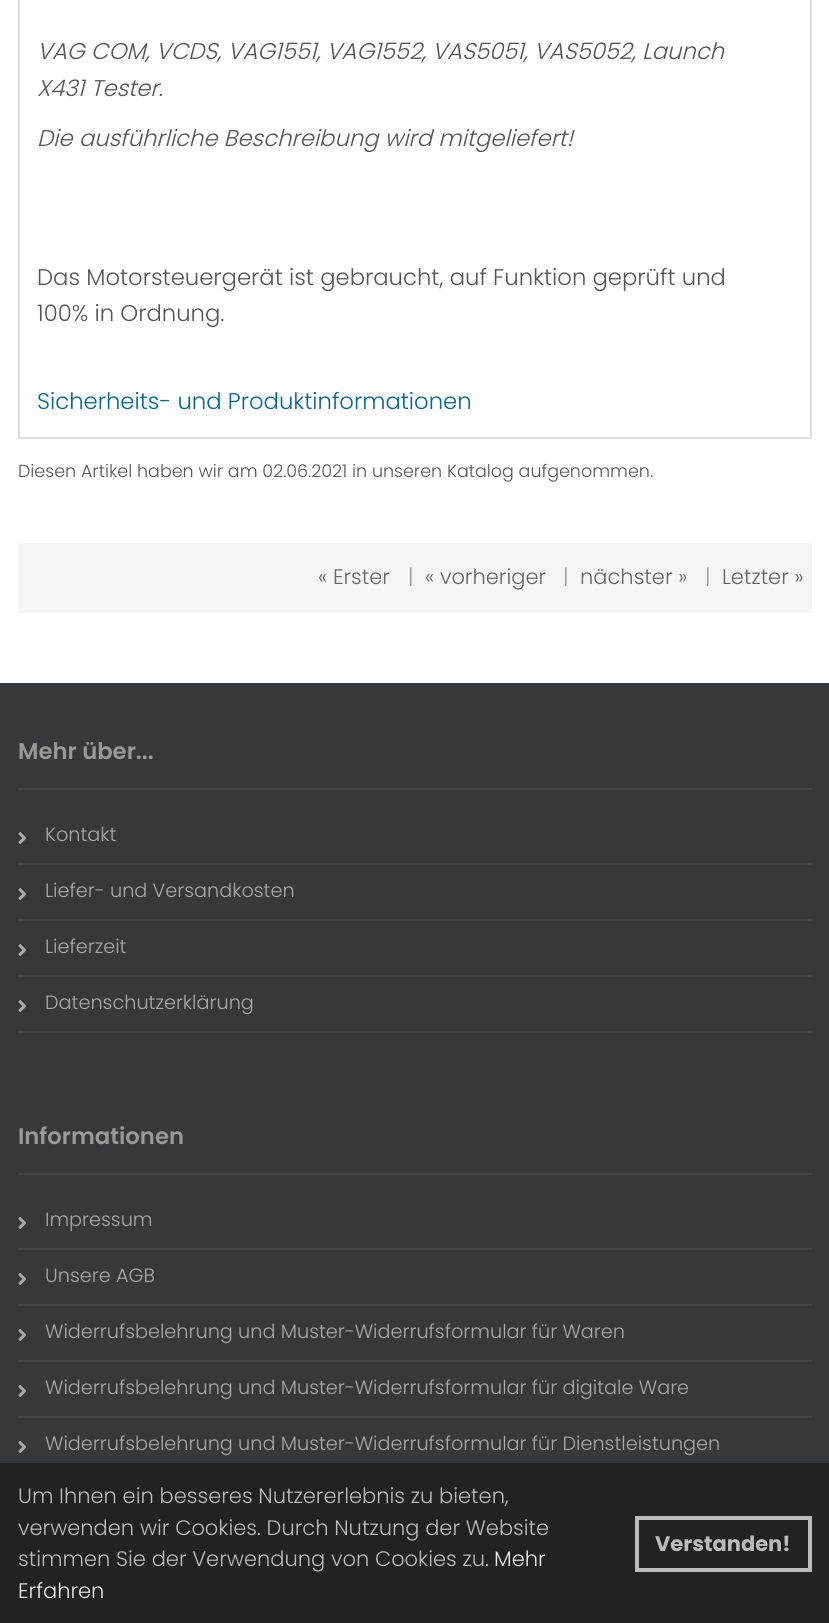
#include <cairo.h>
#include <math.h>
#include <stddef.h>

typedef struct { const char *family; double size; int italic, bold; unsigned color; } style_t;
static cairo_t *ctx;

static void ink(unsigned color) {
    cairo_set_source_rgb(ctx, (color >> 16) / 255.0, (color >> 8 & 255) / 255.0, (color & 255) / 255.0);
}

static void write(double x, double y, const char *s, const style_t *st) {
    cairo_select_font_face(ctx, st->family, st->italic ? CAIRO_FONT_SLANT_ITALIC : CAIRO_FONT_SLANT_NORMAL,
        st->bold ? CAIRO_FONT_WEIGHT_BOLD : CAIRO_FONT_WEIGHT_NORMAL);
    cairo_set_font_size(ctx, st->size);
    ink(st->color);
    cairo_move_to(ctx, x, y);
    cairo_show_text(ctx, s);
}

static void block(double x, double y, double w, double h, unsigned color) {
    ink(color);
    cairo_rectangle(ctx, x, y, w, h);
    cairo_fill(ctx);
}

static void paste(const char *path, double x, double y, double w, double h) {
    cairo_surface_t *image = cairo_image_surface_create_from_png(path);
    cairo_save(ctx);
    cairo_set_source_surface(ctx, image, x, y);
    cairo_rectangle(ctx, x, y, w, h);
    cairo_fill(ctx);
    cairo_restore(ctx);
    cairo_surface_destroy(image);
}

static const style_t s1 = {"Poppins Light", 22.75, 1, 0, 0x555555};
static const style_t s2 = {"Poppins Light", 22.75, 0, 0, 0x555555};
static const style_t s3 = {"Poppins Light", 22.75, 0, 0, 0x006699};
static const style_t s4 = {"Poppins Light", 17.5, 0, 0, 0x555555};
static const style_t s5 = {"Poppins Light", 21, 0, 0, 0x666666};
static const style_t s6 = {"Poppins Light", 21, 0, 0, 0x999999};
static const style_t s7 = {"Poppins SemiBold", 22.75, 0, 0, 0x999999};
static const style_t s8 = {"Poppins Light", 19.25, 0, 0, 0xaaaaaa};
static const style_t s9 = {"Poppins Light", 21, 0, 0, 0xbbbbbb};
static const style_t s10 = {"Poppins Light", 21, 0, 0, 0xe9e9e9};
static const style_t s11 = {"Poppins", 21, 0, 1, 0xbbbbbb};

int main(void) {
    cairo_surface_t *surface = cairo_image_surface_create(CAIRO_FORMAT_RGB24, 829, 1623);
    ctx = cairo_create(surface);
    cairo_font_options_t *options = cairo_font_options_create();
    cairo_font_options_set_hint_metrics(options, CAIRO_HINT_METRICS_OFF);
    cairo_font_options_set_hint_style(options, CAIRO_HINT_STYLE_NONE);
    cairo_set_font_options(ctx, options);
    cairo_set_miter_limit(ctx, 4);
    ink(0xffffff);
    cairo_paint(ctx);
    cairo_rectangle(ctx, 19, -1, 792, 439);
    ink(0xdddddd);
    cairo_stroke(ctx);
    write(37, 59, "VAG COM, VCDS, VAG1551, VAG1552, VAS5051, VAS5052, Launch", &s1);
    write(37, 96, "X431 Tester.", &s1);
    write(37, 146, "Die ausführliche Beschreibung wird mitgeliefert!", &s1);
    write(37, 285, "Das Motorsteuergerät ist gebraucht, auf Funktion geprüft und", &s2);
    write(37, 321, "100% in Ordnung.", &s2);
    write(37, 409, "Sicherheits- und Produktinformationen", &s3);
    write(18, 477, "Diesen Artikel haben wir am 02.06.2021 in unseren Katalog aufgenommen.", &s4);
    block(18, 543, 794, 70, 0xf5f5f5);
    write(318, 584, "« Erster", &s5);
    write(408, 584, "|", &s6);
    write(425, 584, "« vorheriger", &s5);
    write(563, 584, "|", &s6);
    write(580, 584, "nächster »", &s5);
    write(705, 584, "|", &s6);
    write(722, 584, "Letzter »", &s5);
    block(0, 683, 829, 780, 0x363839);
    write(18, 759, "Mehr über...", &s7);
    block(18, 788, 794, 2, 0x444444);
    block(18, 863, 794, 2, 0x444444);
    paste("pic1.png", 18, 832, 9, 12);
    write(45, 841, "Kontakt", &s8);
    block(18, 919, 794, 2, 0x444444);
    paste("pic1.png", 18, 888, 9, 12);
    write(45, 897, "Liefer- und Versandkosten", &s8);
    block(18, 975, 794, 2, 0x444444);
    paste("pic1.png", 18, 944, 9, 12);
    write(45, 953, "Lieferzeit", &s8);
    block(18, 1031, 794, 2, 0x444444);
    paste("pic1.png", 18, 1000, 9, 12);
    write(45, 1009, "Datenschutzerklärung", &s8);
    write(18, 1144, "Informationen", &s7);
    block(18, 1173, 794, 2, 0x444444);
    block(18, 1248, 794, 2, 0x444444);
    paste("pic1.png", 18, 1217, 9, 12);
    write(45, 1226, "Impressum", &s8);
    block(18, 1304, 794, 2, 0x444444);
    paste("pic1.png", 18, 1273, 9, 12);
    write(45, 1282, "Unsere AGB", &s8);
    block(18, 1360, 794, 2, 0x444444);
    paste("pic1.png", 18, 1329, 9, 12);
    write(45, 1338, "Widerrufsbelehrung und Muster-Widerrufsformular für Waren", &s8);
    block(18, 1416, 794, 2, 0x444444);
    paste("pic1.png", 18, 1385, 9, 12);
    write(45, 1394, "Widerrufsbelehrung und Muster-Widerrufsformular für digitale Ware", &s8);
    paste("pic1.png", 18, 1441, 9, 12);
    write(45, 1450, "Widerrufsbelehrung und Muster-Widerrufsformular für Dienstleistungen", &s8);
    block(0, 1463, 829, 160, 0x222222);
    write(18, 1503, "Um Ihnen ein besseres Nutzererlebnis zu bieten,", &s9);
    write(18, 1535, "verwenden wir Cookies. Durch Nutzung der Website", &s9);
    write(18, 1566, "stimmen Sie der Verwendung von Cookies zu.", &s9);
    write(494, 1566, "Mehr", &s10);
    write(18, 1598, "Erfahren", &s10);
    cairo_rectangle(ctx, 637, 1518, 173, 52);
    ink(0xbbbbbb);
    cairo_set_line_width(ctx, 4);
    cairo_stroke(ctx);
    write(655, 1551, "Verstanden!", &s11);
    cairo_surface_write_to_png(surface, "screenshot.png");
    cairo_font_options_destroy(options);
    cairo_destroy(ctx);
    cairo_surface_destroy(surface);
    return 0;
}
